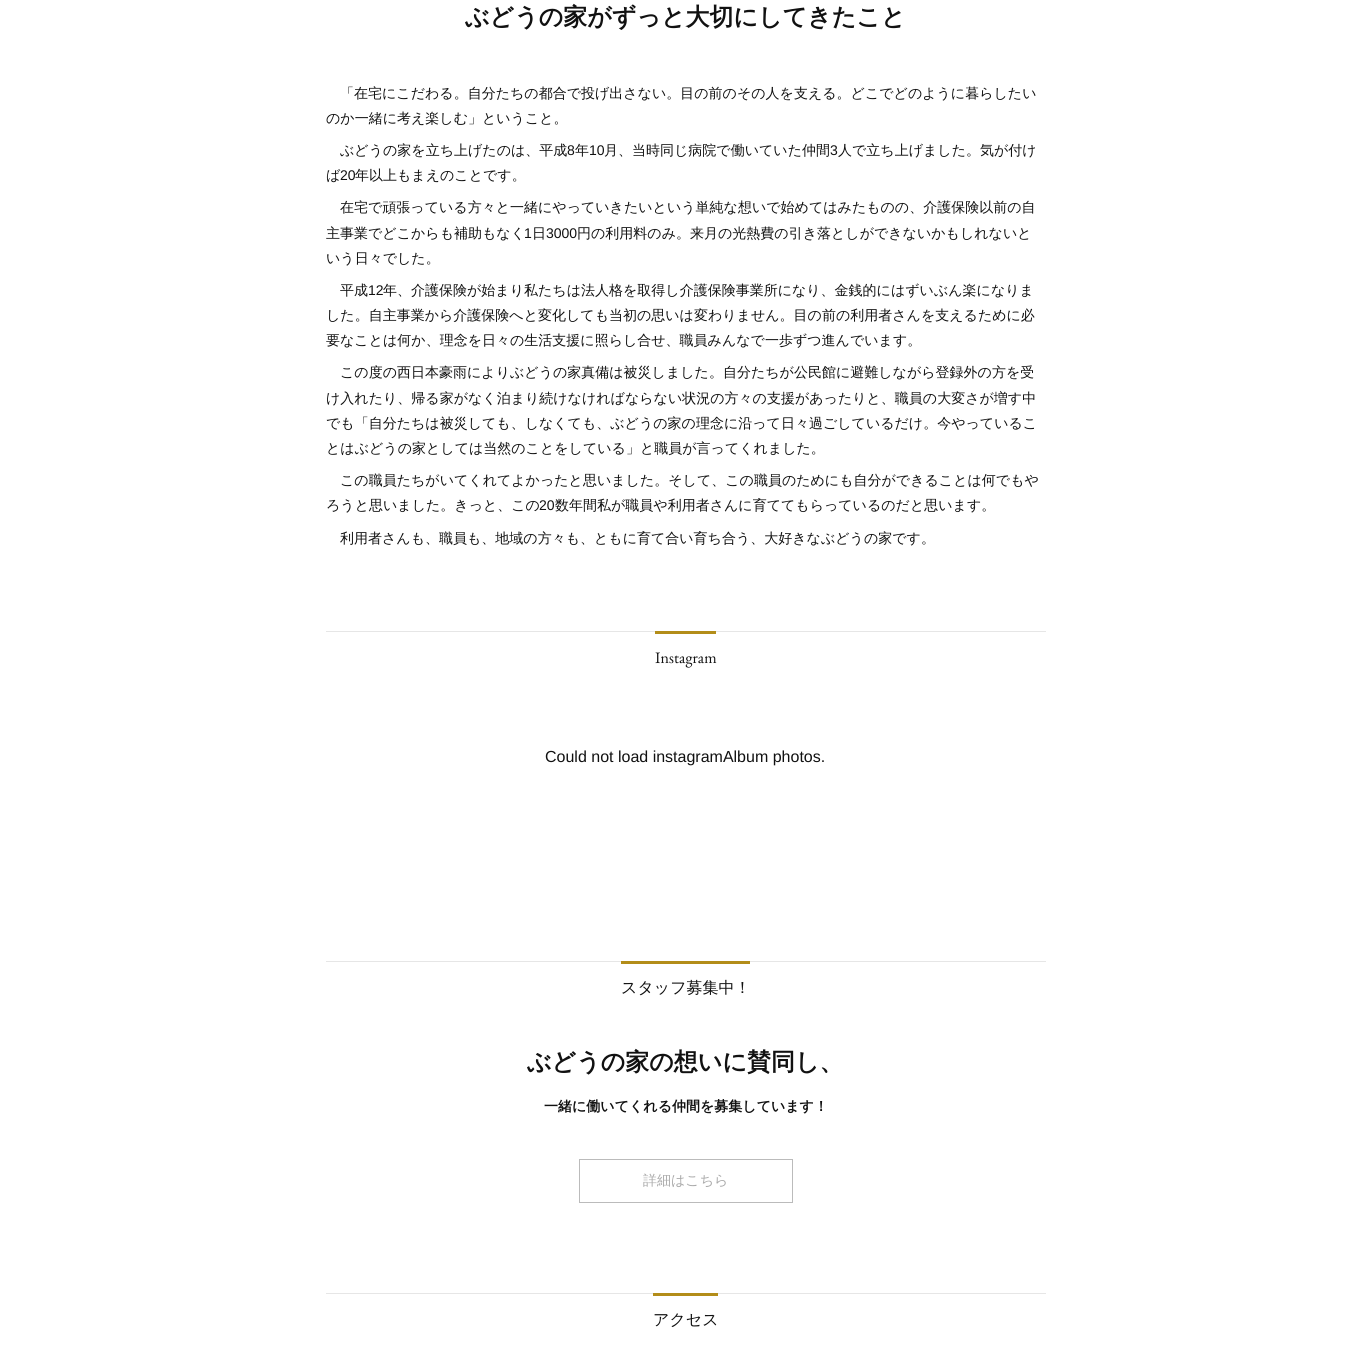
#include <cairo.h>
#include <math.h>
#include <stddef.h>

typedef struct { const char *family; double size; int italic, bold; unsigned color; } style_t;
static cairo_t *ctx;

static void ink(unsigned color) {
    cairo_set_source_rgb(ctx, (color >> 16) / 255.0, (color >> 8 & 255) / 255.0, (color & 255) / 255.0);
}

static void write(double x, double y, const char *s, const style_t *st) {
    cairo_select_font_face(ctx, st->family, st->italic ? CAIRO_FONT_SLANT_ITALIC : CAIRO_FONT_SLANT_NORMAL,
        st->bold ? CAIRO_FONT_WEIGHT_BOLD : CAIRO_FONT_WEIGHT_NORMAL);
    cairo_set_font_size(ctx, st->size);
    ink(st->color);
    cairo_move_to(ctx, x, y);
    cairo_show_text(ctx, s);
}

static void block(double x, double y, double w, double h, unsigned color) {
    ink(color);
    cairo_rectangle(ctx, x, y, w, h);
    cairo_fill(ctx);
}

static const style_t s1 = {"WenQuanYi Zen Hei", 24, 0, 1, 0x111111};
static const style_t s2 = {"WenQuanYi Zen Hei Medium", 14, 0, 0, 0x111111};
static const style_t s3 = {"Liberation Sans", 14, 0, 0, 0x111111};
static const style_t s4 = {"EB Garamond", 16, 0, 0, 0x111111};
static const style_t s5 = {"Liberation Sans", 16, 0, 0, 0x111111};
static const style_t s6 = {"WenQuanYi Zen Hei Medium", 16, 0, 0, 0x111111};
static const style_t s7 = {"WenQuanYi Zen Hei", 14, 0, 1, 0x111111};
static const style_t s8 = {"WenQuanYi Zen Hei Medium", 14, 0, 0, 0xaaaaaa};

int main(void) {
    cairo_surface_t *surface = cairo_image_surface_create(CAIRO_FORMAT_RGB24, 1371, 1371);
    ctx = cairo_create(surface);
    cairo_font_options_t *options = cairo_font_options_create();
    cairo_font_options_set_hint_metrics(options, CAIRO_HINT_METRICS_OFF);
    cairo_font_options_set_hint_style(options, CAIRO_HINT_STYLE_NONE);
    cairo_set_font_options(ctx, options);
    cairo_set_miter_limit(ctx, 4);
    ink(0xffffff);
    cairo_paint(ctx);
    write(465, 25, "ぶどうの家がずっと大切にしてきたこと", &s1);
    write(340, 98, "「在宅にこだわる。自分たちの都合で投げ出さない。目の前のその人を支える。どこでどのように暮らしたい", &s2);
    write(326, 123, "のか一緒に考え楽しむ」ということ。", &s2);
    write(340, 155, "ぶどうの家を立ち上げたのは、平成", &s2);
    write(567, 155, "8", &s3);
    write(575, 155, "年", &s2);
    write(589, 155, "10", &s3);
    write(604, 155, "月、当時同じ病院で働いていた仲間", &s2);
    write(830, 155, "3", &s3);
    write(838, 155, "人で立ち上げました。気が付け", &s2);
    write(326, 180, "ば", &s2);
    write(340, 180, "20", &s3);
    write(355, 180, "年以上もまえのことです。", &s2);
    write(340, 212, "在宅で頑張っている方々と一緒にやっていきたいという単純な想いで始めてはみたものの、介護保険以前の自", &s2);
    write(326, 238, "主事業でどこからも補助もなく", &s2);
    write(524, 238, "1", &s3);
    write(532, 238, "日", &s2);
    write(546, 238, "3000", &s3);
    write(577, 238, "円の利用料のみ。来月の光熱費の引き落としができないかもしれないと", &s2);
    write(326, 263, "いう日々でした。", &s2);
    write(340, 295, "平成", &s2);
    write(368, 295, "12", &s3);
    write(383, 295, "年、介護保険が始まり私たちは法人格を取得し介護保険事業所になり、金銭的にはずいぶん楽になりま", &s2);
    write(326, 320, "した。自主事業から介護保険へと変化しても当初の思いは変わりません。目の前の利用者さんを支えるために必", &s2);
    write(326, 345, "要なことは何か、理念を日々の生活支援に照らし合せ、職員みんなで一歩ずつ進んでいます。", &s2);
    write(340, 377, "この度の西日本豪雨によりぶどうの家真備は被災しました。自分たちが公民館に避難しながら登録外の方を受", &s2);
    write(326, 403, "け入れたり、帰る家がなく泊まり続けなければならない状況の方々の支援があったりと、職員の大変さが増す中", &s2);
    write(326, 428, "でも「自分たちは被災しても、しなくても、ぶどうの家の理念に沿って日々過ごしているだけ。今やっているこ", &s2);
    write(326, 453, "とはぶどうの家としては当然のことをしている」と職員が言ってくれました。", &s2);
    write(340, 485, "この職員たちがいてくれてよかったと思いました。そして、この職員のためにも自分ができることは何でもや", &s2);
    write(326, 510, "ろうと思いました。きっと、この", &s2);
    write(539, 510, "20", &s3);
    write(555, 510, "数年間私が職員や利用者さんに育ててもらっているのだと思います。", &s2);
    write(340, 543, "利用者さんも、職員も、地域の方々も、ともに育て合い育ち合う、大好きなぶどうの家です。", &s2);
    block(326, 631, 720, 1, 0xe6e6e6);
    block(655, 631, 61, 3, 0xb38d19);
    write(655, 663, "Instagram", &s4);
    write(545, 762, "Could not load instagramAlbum photos.", &s5);
    block(326, 961, 720, 1, 0xe6e6e6);
    block(621, 961, 129, 3, 0xb38d19);
    write(621, 993, "スタッフ募集中！", &s6);
    write(527, 1070, "ぶどうの家の想いに賛同し、", &s1);
    write(544, 1111, "一緒に働いてくれる仲間を募集しています！", &s7);
    cairo_rectangle(ctx, 579.5, 1159.5, 213, 43);
    ink(0xbbbbbb);
    cairo_set_line_width(ctx, 1);
    cairo_stroke(ctx);
    write(643, 1185, "詳細はこちら", &s8);
    block(326, 1293, 720, 1, 0xe6e6e6);
    block(653, 1293, 65, 3, 0xb38d19);
    write(653, 1325, "アクセス", &s6);
    cairo_surface_write_to_png(surface, "screenshot.png");
    cairo_font_options_destroy(options);
    cairo_destroy(ctx);
    cairo_surface_destroy(surface);
    return 0;
}
